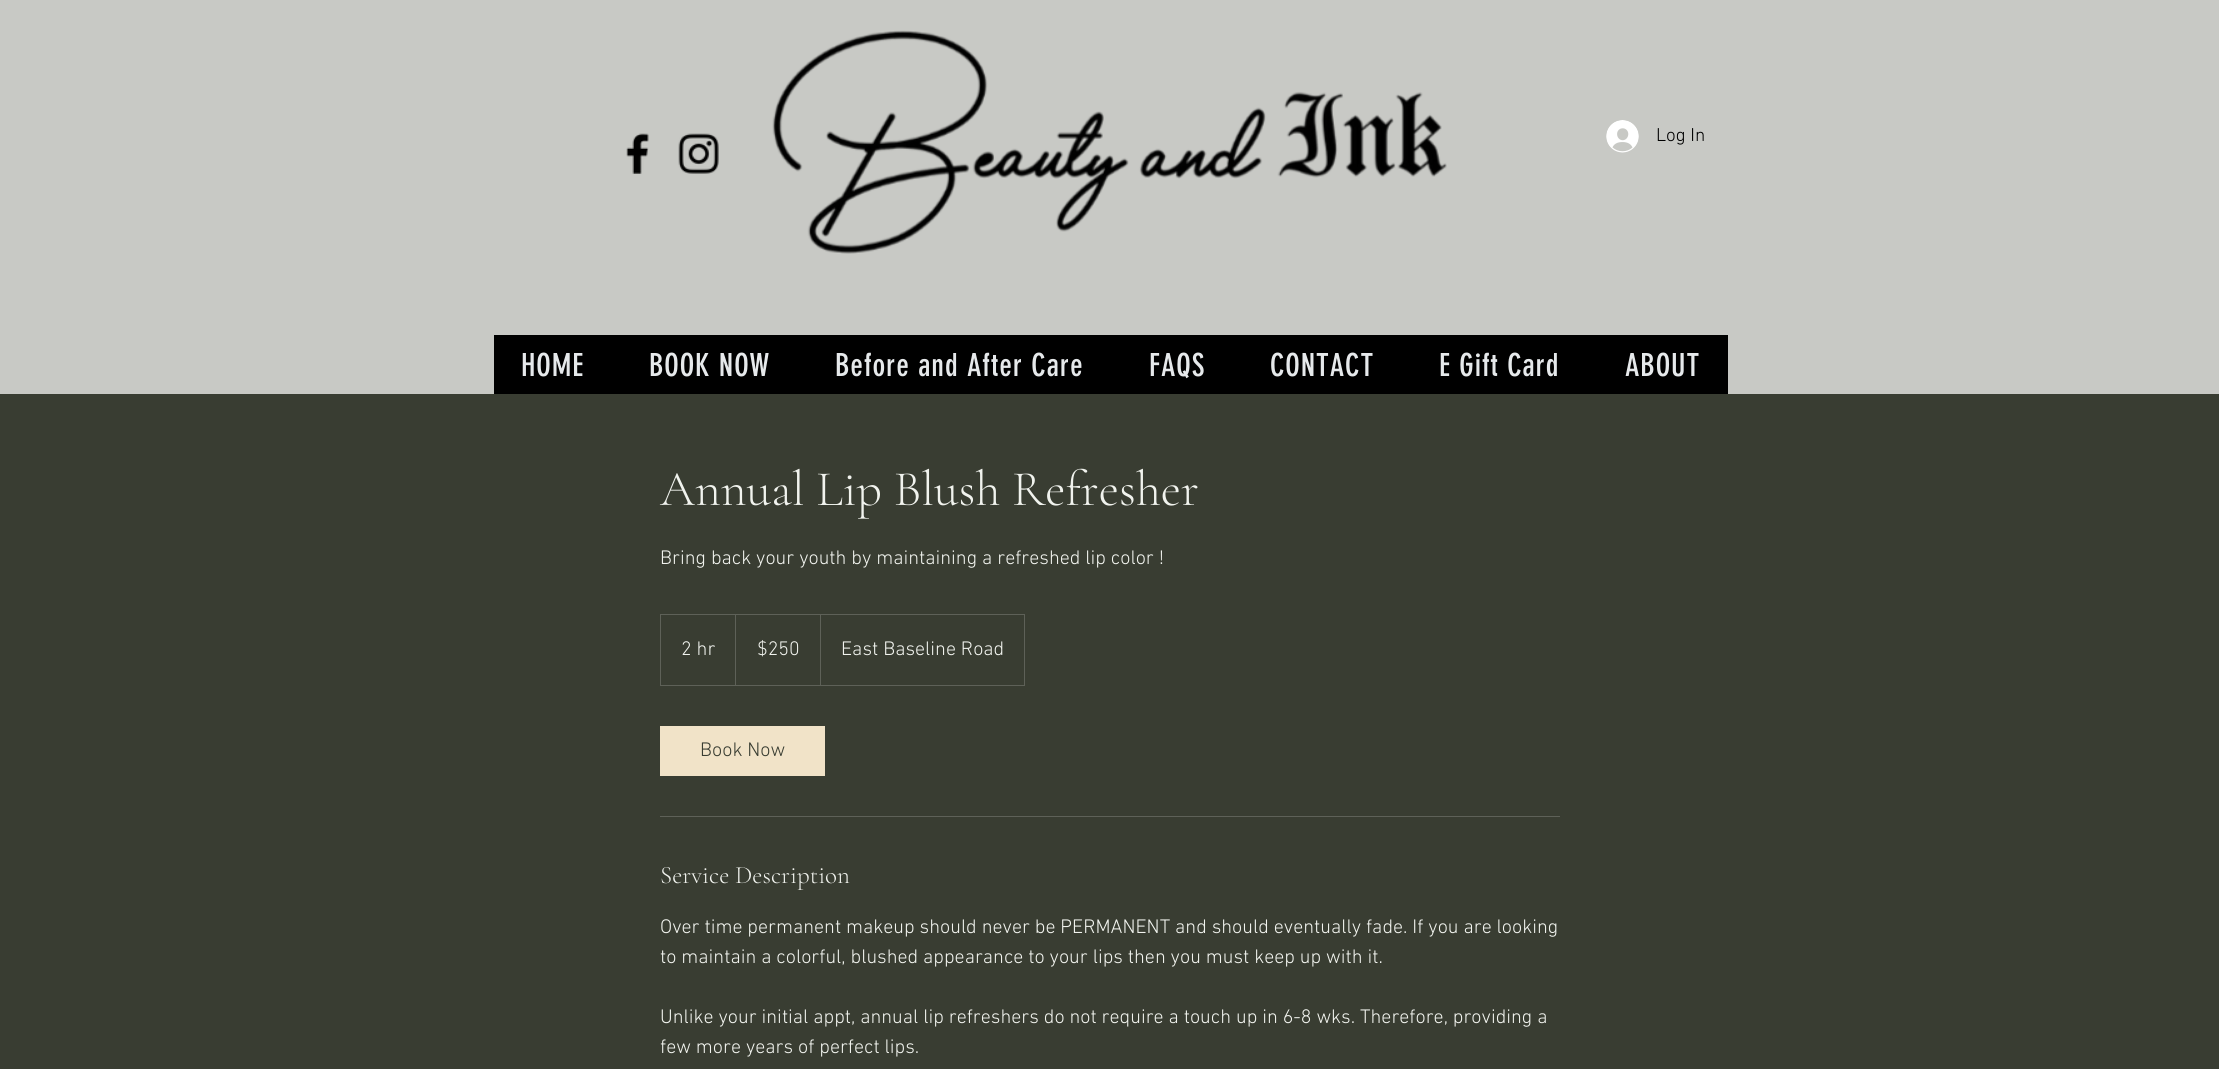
#include <cairo.h>
#include <math.h>
#include <stddef.h>

typedef struct { const char *family; double size; int italic, bold; unsigned color; } style_t;
static cairo_t *ctx;

static void ink(unsigned color) {
    cairo_set_source_rgb(ctx, (color >> 16) / 255.0, (color >> 8 & 255) / 255.0, (color & 255) / 255.0);
}

static void write(double x, double y, const char *s, const style_t *st) {
    cairo_select_font_face(ctx, st->family, st->italic ? CAIRO_FONT_SLANT_ITALIC : CAIRO_FONT_SLANT_NORMAL,
        st->bold ? CAIRO_FONT_WEIGHT_BOLD : CAIRO_FONT_WEIGHT_NORMAL);
    cairo_set_font_size(ctx, st->size);
    ink(st->color);
    cairo_move_to(ctx, x, y);
    cairo_show_text(ctx, s);
}

static void write_spaced(double x, double y, const char *s, double letter, double word) {
    cairo_move_to(ctx, x, y);
    while (*s) {
        char ch[5] = {0};
        int n = 0;
        do ch[n++] = *s++; while ((*s & 0xC0) == 0x80);
        cairo_show_text(ctx, ch);
        cairo_rel_move_to(ctx, letter + word * (*ch == ' '), 0);
    }
}

static void block(double x, double y, double w, double h, unsigned color) {
    ink(color);
    cairo_rectangle(ctx, x, y, w, h);
    cairo_fill(ctx);
}

static void round_path(double x, double y, double w, double h, double r) {
    cairo_new_sub_path(ctx);
    cairo_arc(ctx, x + w - r, y + h - r, r, 0, M_PI / 2);
    cairo_arc(ctx, x + r, y + h - r, r, M_PI / 2, M_PI);
    cairo_arc(ctx, x + r, y + r, r, M_PI, 1.5 * M_PI);
    cairo_arc(ctx, x + w - r, y + r, r, 1.5 * M_PI, 2 * M_PI);
    cairo_close_path(ctx);
}

static void blur_box(double x, double y, double w, double h, double r, double blur, double alpha) {
    cairo_push_group_with_content(ctx, CAIRO_CONTENT_ALPHA);
    cairo_set_operator(ctx, CAIRO_OPERATOR_SOURCE);
    for (int i = 15; i >= -15 && fmin(w, h) + blur * i / 3 > 0; i -= 2) {
        double e = blur * i / 6;
        cairo_set_source_rgba(ctx, 0, 0, 0, alpha * erfc((i - 1) / 8.5) / 2);
        round_path(x - e, y - e, w + 2 * e, h + 2 * e, fmax(0, fmin(r + e + blur * .6, fmin(w, h) / 2 + e)));
        cairo_fill(ctx);
    }
    cairo_pattern_t *soft = cairo_pop_group(ctx);
    cairo_mask(ctx, soft);
    cairo_pattern_destroy(soft);
}

static void paste(const char *path, double x, double y, double w, double h) {
    cairo_surface_t *image = cairo_image_surface_create_from_png(path);
    cairo_save(ctx);
    cairo_set_source_surface(ctx, image, x, y);
    cairo_rectangle(ctx, x, y, w, h);
    cairo_fill(ctx);
    cairo_restore(ctx);
    cairo_surface_destroy(image);
}

static const style_t s1 = {"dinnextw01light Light", 19, 0, 0, 0x000000};
static const style_t s2 = {"Cormorant Garamond Light", 50, 0, 0, 0xf1f3ee};
static const style_t s3 = {"dinnextw01light Light", 20, 0, 0, 0xf1f3ee};
static const style_t s4 = {"dinnextw01light Light", 20, 0, 0, 0x393d32};
static const style_t s5 = {"Cormorant Garamond Light", 25, 0, 0, 0xf1f3ee};

int main(void) {
    cairo_surface_t *surface = cairo_image_surface_create(CAIRO_FORMAT_RGB24, 2219, 1069);
    ctx = cairo_create(surface);
    cairo_font_options_t *options = cairo_font_options_create();
    cairo_font_options_set_hint_metrics(options, CAIRO_HINT_METRICS_OFF);
    cairo_font_options_set_hint_style(options, CAIRO_HINT_STYLE_NONE);
    cairo_set_font_options(ctx, options);
    cairo_set_miter_limit(ctx, 4);
    ink(0xc8c9c5);
    cairo_paint(ctx);
    cairo_save(ctx);
    cairo_set_fill_rule(ctx, CAIRO_FILL_RULE_EVEN_ODD);
    cairo_new_path(ctx);
    cairo_move_to(ctx, 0, 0);
    cairo_line_to(ctx, 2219, 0);
    cairo_line_to(ctx, 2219, 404);
    cairo_line_to(ctx, 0, 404);
    cairo_close_path(ctx);
    cairo_move_to(ctx, 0, 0);
    cairo_line_to(ctx, 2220, 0);
    cairo_line_to(ctx, 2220, 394);
    cairo_line_to(ctx, 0, 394);
    cairo_close_path(ctx);
    cairo_clip(ctx);
    ink(0x000000);
    blur_box(0, 0, 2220, 394, 0, 3, 0.7);
    cairo_restore(ctx);
    paste("pic1.png", 626, 133, 23, 41);
    paste("pic2.png", 678, 133, 41, 41);
    paste("pic3.png", 772, 30, 675, 224);
    paste("pic4.png", 1606, 120, 33, 33);
    write(1656, 141, "Log In", &s1);
    block(494, 335, 1234, 59, 0x000000);
    cairo_select_font_face(ctx, "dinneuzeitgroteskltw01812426", CAIRO_FONT_SLANT_NORMAL, CAIRO_FONT_WEIGHT_NORMAL);
    cairo_set_font_size(ctx, 31.25);
    ink(0xe6e9eb);
    write_spaced(521, 376, "HOME", 0.9, 0);
    write_spaced(649, 376, "BOOK NOW", 0.9, 0);
    write_spaced(835, 376, "Before and After Care", 0.9, 0);
    write_spaced(1149, 376, "FAQS", 0.9, 0);
    write_spaced(1270, 376, "CONTACT", 0.9, 0);
    write_spaced(1439, 376, "E Gift Card", 0.9, 0);
    write_spaced(1625, 376, "ABOUT", 0.9, 0);
    block(0, 394, 2219, 675, 0x393d32);
    write(660, 505, "Annual Lip Blush Refresher", &s2);
    write(660, 564, "Bring back your youth by maintaining a refreshed lip color !", &s3);
    cairo_rectangle(ctx, 660.5, 614.5, 364, 71);
    ink(0x5e6158);
    cairo_set_line_width(ctx, 1);
    cairo_stroke(ctx);
    write(681, 655, "2 hr", &s3);
    ink(0x5e6158);
    cairo_new_path(ctx);
    cairo_move_to(ctx, 735, 685);
    cairo_line_to(ctx, 735, 614);
    cairo_line_to(ctx, 736, 615);
    cairo_line_to(ctx, 736, 685);
    cairo_close_path(ctx);
    cairo_fill(ctx);
    write(757, 655, "$250", &s3);
    ink(0x5e6158);
    cairo_new_path(ctx);
    cairo_move_to(ctx, 820, 685);
    cairo_line_to(ctx, 820, 614);
    cairo_line_to(ctx, 821, 615);
    cairo_line_to(ctx, 821, 685);
    cairo_close_path(ctx);
    cairo_fill(ctx);
    write(841, 655, "East Baseline Road", &s3);
    block(660, 726, 165, 50, 0xf1e3c8);
    write(700, 756, "Book Now", &s4);
    block(660, 816, 900, 1, 0x5e6158);
    write(660, 883, "Service Description", &s5);
    write(660, 933, "Over time permanent makeup should never be PERMANENT and should eventually fade. If you are looking", &s3);
    write(660, 963, "to maintain a colorful, blushed appearance to your lips then you must keep up with it.", &s3);
    write(660, 1023, "Unlike your initial appt, annual lip refreshers do not require a touch up in 6-8 wks. Therefore, providing a", &s3);
    write(660, 1053, "few more years of perfect lips.", &s3);
    cairo_surface_write_to_png(surface, "screenshot.png");
    cairo_font_options_destroy(options);
    cairo_destroy(ctx);
    cairo_surface_destroy(surface);
    return 0;
}
